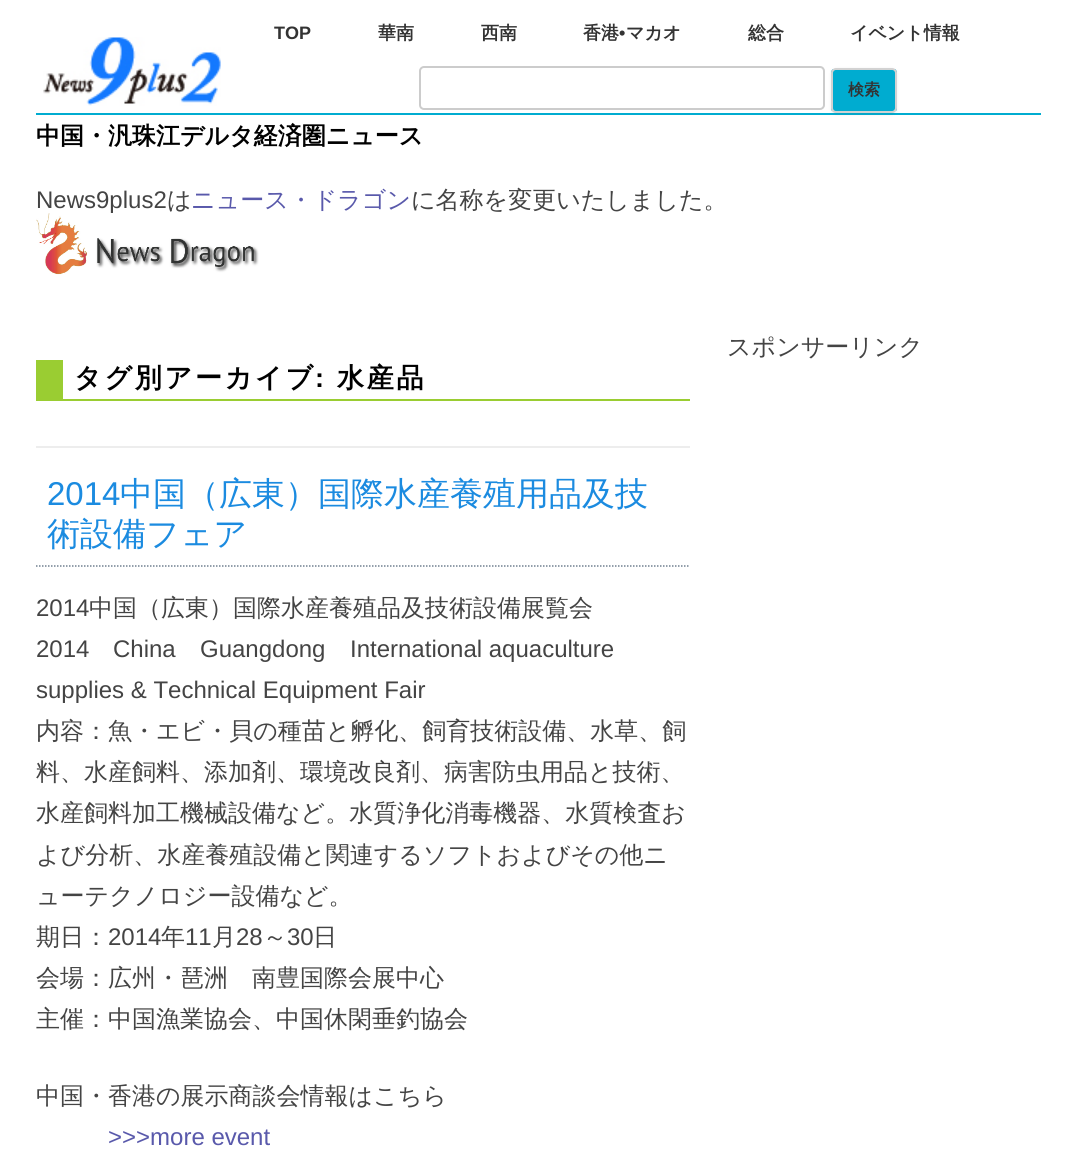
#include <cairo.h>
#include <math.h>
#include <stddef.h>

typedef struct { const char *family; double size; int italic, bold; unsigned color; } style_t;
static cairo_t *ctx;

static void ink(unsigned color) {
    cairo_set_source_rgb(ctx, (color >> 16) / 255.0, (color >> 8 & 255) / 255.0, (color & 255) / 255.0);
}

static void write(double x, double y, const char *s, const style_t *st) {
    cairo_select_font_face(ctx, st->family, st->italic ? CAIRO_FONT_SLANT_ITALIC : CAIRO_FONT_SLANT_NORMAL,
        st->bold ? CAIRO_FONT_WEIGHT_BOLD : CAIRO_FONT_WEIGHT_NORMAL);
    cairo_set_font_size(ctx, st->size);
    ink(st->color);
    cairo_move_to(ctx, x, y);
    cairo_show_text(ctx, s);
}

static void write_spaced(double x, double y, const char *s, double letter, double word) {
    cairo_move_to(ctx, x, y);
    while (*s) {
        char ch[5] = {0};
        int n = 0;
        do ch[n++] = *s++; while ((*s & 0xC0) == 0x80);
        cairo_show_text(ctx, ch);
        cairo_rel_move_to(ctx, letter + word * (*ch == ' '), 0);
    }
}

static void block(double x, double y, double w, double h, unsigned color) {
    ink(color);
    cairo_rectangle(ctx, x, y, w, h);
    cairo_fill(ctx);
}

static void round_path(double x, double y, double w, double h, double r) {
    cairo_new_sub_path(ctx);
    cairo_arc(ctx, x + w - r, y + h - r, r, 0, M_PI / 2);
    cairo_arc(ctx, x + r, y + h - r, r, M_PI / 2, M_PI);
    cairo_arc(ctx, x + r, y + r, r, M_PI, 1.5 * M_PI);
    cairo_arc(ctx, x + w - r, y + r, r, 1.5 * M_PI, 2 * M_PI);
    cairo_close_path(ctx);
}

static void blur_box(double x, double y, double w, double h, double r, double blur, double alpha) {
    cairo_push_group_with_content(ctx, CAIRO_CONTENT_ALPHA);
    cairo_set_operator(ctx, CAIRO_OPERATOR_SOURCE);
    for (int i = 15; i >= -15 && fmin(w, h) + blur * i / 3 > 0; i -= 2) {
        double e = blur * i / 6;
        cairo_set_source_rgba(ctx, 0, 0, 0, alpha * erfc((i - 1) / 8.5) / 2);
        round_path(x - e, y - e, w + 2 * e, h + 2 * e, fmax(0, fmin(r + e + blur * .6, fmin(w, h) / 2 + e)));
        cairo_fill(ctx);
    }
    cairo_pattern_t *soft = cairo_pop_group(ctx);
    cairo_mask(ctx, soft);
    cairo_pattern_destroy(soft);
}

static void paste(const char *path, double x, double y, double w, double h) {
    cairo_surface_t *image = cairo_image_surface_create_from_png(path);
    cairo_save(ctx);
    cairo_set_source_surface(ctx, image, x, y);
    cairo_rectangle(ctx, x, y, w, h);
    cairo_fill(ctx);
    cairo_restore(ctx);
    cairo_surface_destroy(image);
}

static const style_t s1 = {"Liberation Sans", 18, 0, 1, 0x333333};
static const style_t s2 = {"WenQuanYi Zen Hei", 18, 0, 1, 0x333333};
static const style_t s3 = {"WenQuanYi Zen Hei", 16, 0, 1, 0x333333};
static const style_t s4 = {"WenQuanYi Zen Hei", 24, 0, 1, 0x000000};
static const style_t s5 = {"Liberation Sans", 24, 0, 0, 0x444444};
static const style_t s6 = {"WenQuanYi Zen Hei Medium", 24, 0, 0, 0x444444};
static const style_t s7 = {"WenQuanYi Zen Hei Medium", 24, 0, 0, 0x5959ab};
static const style_t s8 = {"Liberation Sans", 33, 0, 0, 0x1b8be0};
static const style_t s9 = {"WenQuanYi Zen Hei Medium", 33, 0, 0, 0x1b8be0};
static const style_t s10 = {"Liberation Sans", 24, 0, 0, 0x5959ab};

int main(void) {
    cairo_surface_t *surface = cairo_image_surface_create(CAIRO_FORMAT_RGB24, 1076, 1158);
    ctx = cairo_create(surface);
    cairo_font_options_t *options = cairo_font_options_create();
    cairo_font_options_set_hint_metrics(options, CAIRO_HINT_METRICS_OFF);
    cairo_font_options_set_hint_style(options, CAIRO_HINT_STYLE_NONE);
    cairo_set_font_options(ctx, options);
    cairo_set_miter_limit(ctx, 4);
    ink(0xffffff);
    cairo_paint(ctx);
    write(274, 39, "TOP", &s1);
    write(378, 39, "華南", &s2);
    write(481, 39, "西南", &s2);
    write(583, 39, "香港", &s2);
    write(619, 39, "•", &s1);
    write(626, 39, "マカオ", &s2);
    write(748, 39, "総合", &s2);
    write(850, 39, "イベント情報", &s2);
    round_path(420, 67, 404, 42, 4);
    ink(0xcccccc);
    cairo_stroke(ctx);
    block(36, 113, 1005, 2, 0x00acd0);
    ink(0x404040);
    blur_box(831, 69, 66, 45, 5, 1.5, 0.1);
    cairo_save(ctx);
    round_path(831, 68, 66, 45, 5);
    cairo_clip(ctx);
    block(831, 69, 66, 42, 0x00acd0);
    cairo_restore(ctx);
    round_path(832, 69, 64, 43, 4);
    ink(0xd2d2d2);
    cairo_stroke(ctx);
    write(848, 95, "検索", &s3);
    paste("pic1.png", 43, 37, 178, 69);
    write(36, 144, "中国・汎珠江デルタ経済圏ニュース", &s4);
    write(36, 208, "News9plus2", &s5);
    write(167, 208, "は", &s6);
    write(191, 208, "ニュース・ドラゴン", &s7);
    write(411, 208, "に名称を変更いたしました。", &s6);
    paste("pic2.png", 36, 213, 223, 62);
    write(727, 355, "スポンサーリンク", &s6);
    block(36, 446, 654, 2, 0xededed);
    block(63, 399, 627, 2, 0x9acd32);
    block(36, 360, 27, 41, 0x9acd32);
    cairo_select_font_face(ctx, "WenQuanYi Zen Hei", CAIRO_FONT_SLANT_NORMAL, CAIRO_FONT_WEIGHT_BOLD);
    cairo_set_font_size(ctx, 27);
    ink(0x000000);
    write_spaced(74, 387, "タグ別アーカイブ", 2.75, 0);
    cairo_select_font_face(ctx, "Liberation Sans", CAIRO_FONT_SLANT_NORMAL, CAIRO_FONT_WEIGHT_BOLD);
    write_spaced(315, 387, ":", 2.75, 0);
    cairo_select_font_face(ctx, "WenQuanYi Zen Hei", CAIRO_FONT_SLANT_NORMAL, CAIRO_FONT_WEIGHT_BOLD);
    write_spaced(337, 387, "水産品", 2.75, 0);
    cairo_new_path(ctx);
    cairo_move_to(ctx, 36, 566);
    cairo_line_to(ctx, 690, 566);
    ink(0x708090);
    cairo_set_line_width(ctx, 1.5);
    cairo_set_dash(ctx, (double[]){1.5, 1.5}, 2, 0);
    cairo_stroke(ctx);
    write(47, 505, "2014", &s8);
    write(120, 505, "中国（広東）国際水産養殖用品及技", &s9);
    write(47, 545, "術設備フェア", &s9);
    write(36, 616, "2014", &s5);
    write(89, 616, "中国（広東）国際水産養殖品及技術設備展覧会", &s6);
    write(36, 657, "2014", &s5);
    write(113, 657, "China", &s5);
    write(200, 657, "Guangdong", &s5);
    write(350, 657, "International aquaculture", &s5);
    write(36, 698, "supplies & Technical Equipment Fair", &s5);
    write(36, 739, "内容：魚・エビ・貝の種苗と孵化、飼育技術設備、水草、飼", &s6);
    write(36, 780, "料、水産飼料、添加剤、環境改良剤、病害防虫用品と技術、", &s6);
    write(36, 821, "水産飼料加工機械設備など。水質浄化消毒機器、水質検査お", &s6);
    write(36, 863, "よび分析、水産養殖設備と関連するソフトおよびその他ニ", &s6);
    write(36, 904, "ューテクノロジー設備など。", &s6);
    write(36, 945, "期日：", &s6);
    write(108, 945, "2014", &s5);
    write(161, 945, "年", &s6);
    write(185, 945, "11", &s5);
    write(212, 945, "月", &s6);
    write(236, 945, "28", &s5);
    write(263, 945, "～", &s6);
    write(287, 945, "30", &s5);
    write(313, 945, "日", &s6);
    write(36, 986, "会場：広州・琶洲　南豊国際会展中心", &s6);
    write(36, 1027, "主催：中国漁業協会、中国休閑垂釣協会", &s6);
    write(36, 1104, "中国・香港の展示商談会情報はこちら", &s6);
    write(108, 1145, ">>>more event", &s10);
    cairo_surface_write_to_png(surface, "screenshot.png");
    cairo_font_options_destroy(options);
    cairo_destroy(ctx);
    cairo_surface_destroy(surface);
    return 0;
}
